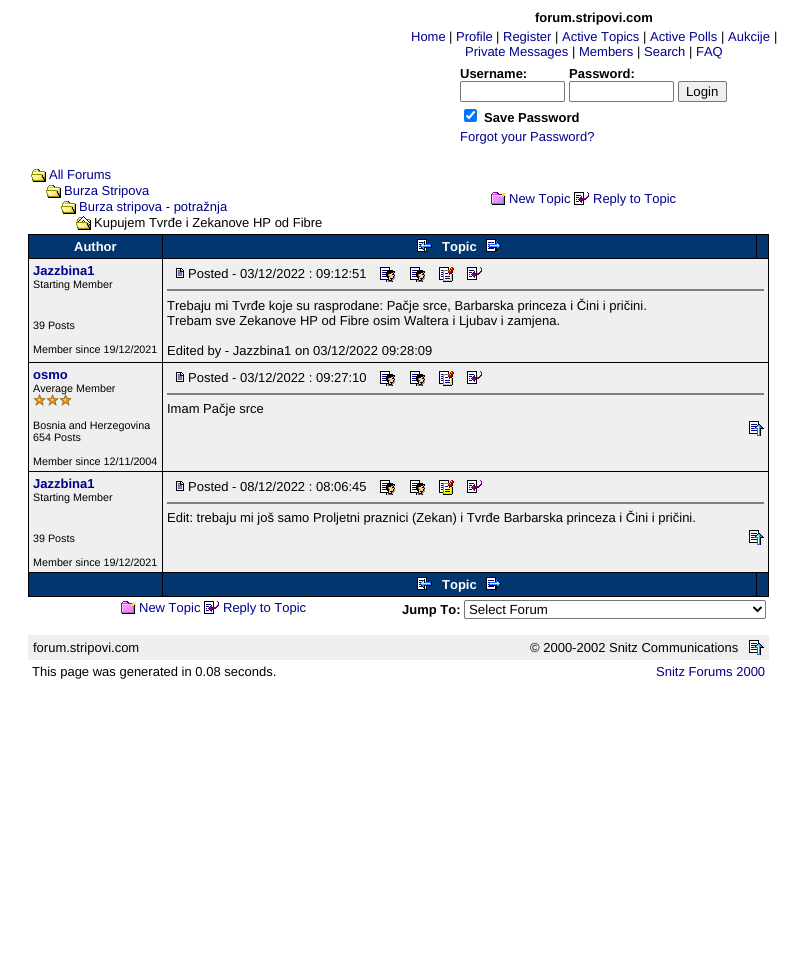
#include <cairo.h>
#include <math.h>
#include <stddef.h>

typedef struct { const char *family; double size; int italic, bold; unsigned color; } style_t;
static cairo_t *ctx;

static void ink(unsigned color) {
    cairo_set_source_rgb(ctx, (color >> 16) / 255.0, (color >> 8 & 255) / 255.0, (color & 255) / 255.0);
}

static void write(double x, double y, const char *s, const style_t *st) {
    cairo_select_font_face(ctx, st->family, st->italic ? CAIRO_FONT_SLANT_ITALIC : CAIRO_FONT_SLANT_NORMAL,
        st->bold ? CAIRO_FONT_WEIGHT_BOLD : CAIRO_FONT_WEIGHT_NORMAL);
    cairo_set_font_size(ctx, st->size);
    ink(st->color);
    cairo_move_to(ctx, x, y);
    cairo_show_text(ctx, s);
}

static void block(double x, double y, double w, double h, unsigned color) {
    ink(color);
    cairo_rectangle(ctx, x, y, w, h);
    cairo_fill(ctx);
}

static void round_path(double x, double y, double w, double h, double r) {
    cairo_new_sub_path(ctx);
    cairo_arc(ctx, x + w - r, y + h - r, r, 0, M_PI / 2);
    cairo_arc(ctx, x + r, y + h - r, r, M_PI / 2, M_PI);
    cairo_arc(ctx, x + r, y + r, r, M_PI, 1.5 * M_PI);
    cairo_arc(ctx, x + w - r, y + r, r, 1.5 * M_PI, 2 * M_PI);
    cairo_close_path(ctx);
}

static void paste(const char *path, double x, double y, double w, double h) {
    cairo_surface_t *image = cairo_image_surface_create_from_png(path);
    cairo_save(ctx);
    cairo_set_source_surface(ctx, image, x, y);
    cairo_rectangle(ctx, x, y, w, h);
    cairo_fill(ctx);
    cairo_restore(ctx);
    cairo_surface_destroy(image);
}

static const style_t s1 = {"Liberation Sans", 13, 0, 1, 0x000000};
static const style_t s2 = {"Liberation Sans", 13, 0, 0, 0x00008b};
static const style_t s3 = {"Liberation Sans", 13, 0, 0, 0x000000};
static const style_t s4 = {"Liberation Sans", 13.25, 0, 0, 0x000000};
static const style_t s5 = {"Liberation Sans", 13, 0, 1, 0xffffff};
static const style_t s6 = {"Liberation Sans", 13, 0, 1, 0x00008b};
static const style_t s7 = {"Liberation Sans", 10.75, 0, 0, 0x000000};

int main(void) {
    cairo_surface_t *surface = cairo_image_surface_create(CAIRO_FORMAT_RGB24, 797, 959);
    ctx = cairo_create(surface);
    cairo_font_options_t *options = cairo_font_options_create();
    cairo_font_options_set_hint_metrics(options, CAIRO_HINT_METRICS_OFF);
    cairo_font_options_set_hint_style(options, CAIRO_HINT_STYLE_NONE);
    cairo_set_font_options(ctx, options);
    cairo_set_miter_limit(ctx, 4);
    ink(0xffffff);
    cairo_paint(ctx);
    write(535, 22, "forum.stripovi.com", &s1);
    write(411, 41, "Home", &s2);
    write(449, 41, "|", &s3);
    write(456, 41, "Profile", &s2);
    write(496, 41, "|", &s3);
    write(503, 41, "Register", &s2);
    write(555, 41, "|", &s3);
    write(562, 41, "Active Topics", &s2);
    write(643, 41, "|", &s3);
    write(650, 41, "Active Polls", &s2);
    write(721, 41, "|", &s3);
    write(728, 41, "Aukcije", &s2);
    write(774, 41, "|", &s3);
    write(465, 56, "Private Messages", &s2);
    write(572, 56, "|", &s3);
    write(579, 56, "Members", &s2);
    write(637, 56, "|", &s3);
    write(644, 56, "Search", &s2);
    write(689, 56, "|", &s3);
    write(696, 56, "FAQ", &s2);
    write(460, 78, "Username:", &s1);
    round_path(460.5, 81.5, 104, 20, 1.5);
    ink(0x767676);
    cairo_set_line_width(ctx, 1);
    cairo_stroke(ctx);
    write(569, 78, "Password:", &s1);
    round_path(569.5, 81.5, 104, 20, 1.5);
    ink(0x767676);
    cairo_stroke(ctx);
    ink(0xefefef);
    round_path(678.5, 81.5, 48, 20, 1.5);
    cairo_fill_preserve(ctx);
    ink(0x767676);
    cairo_stroke(ctx);
    write(686, 96, "Login", &s4);
    ink(0x0075ff);
    round_path(464, 109, 13, 13, 2);
    cairo_fill(ctx);
    cairo_new_path(ctx);
    cairo_move_to(ctx, 466.5, 115.5);
    cairo_line_to(ctx, 469, 118);
    cairo_line_to(ctx, 474.5, 111.5);
    ink(0xffffff);
    cairo_set_line_width(ctx, 2.1);
    cairo_stroke(ctx);
    write(484, 122, "Save Password", &s1);
    write(460, 141, "Forgot your Password?", &s2);
    paste("pic1.png", 31, 169, 15, 13);
    write(49, 179, "All Forums", &s2);
    paste("pic1.png", 46, 185, 15, 13);
    write(64, 195, "Burza Stripova", &s2);
    paste("pic1.png", 61, 201, 15, 13);
    write(79, 211, "Burza stripova - potražnja", &s2);
    paste("pic2.png", 76, 216, 15, 14);
    write(94, 227, "Kupujem Tvrđe i Zekanove HP od Fibre", &s3);
    paste("pic3.png", 491, 192, 15, 13);
    write(509, 203, "New Topic", &s2);
    paste("pic4.png", 574, 192, 15, 13);
    write(593, 203, "Reply to Topic", &s2);
    block(28, 234, 741, 363, 0x000000);
    block(29, 235, 133, 23, 0x013670);
    write(74, 251, "Author", &s5);
    block(163, 235, 593, 23, 0x013670);
    paste("pic5.png", 417, 239, 15, 13);
    write(442, 251, "Topic", &s5);
    paste("pic6.png", 486, 239, 15, 13);
    block(757, 235, 11, 23, 0x013670);
    block(29, 259, 133, 103, 0xefefef);
    write(33, 275, "Jazzbina1", &s6);
    write(33, 288, "Starting Member", &s7);
    write(33, 329, "39 Posts", &s7);
    write(33, 353, "Member since 19/12/2021", &s7);
    block(163, 259, 605, 103, 0xefefef);
    paste("pic7.png", 176, 268, 8, 10);
    write(188, 278, "Posted - 03/12/2022 : 09:12:51", &s3);
    paste("pic8.png", 380, 267, 15, 15);
    paste("pic8.png", 410, 267, 15, 15);
    paste("pic9.png", 439, 267, 15, 15);
    paste("pic10.png", 467, 267, 15, 13);
    block(167, 289, 597, 2, 0x808080);
    write(167, 310, "Trebaju mi Tvrđe koje su rasprodane: Pačje srce, Barbarska princeza i Čini i pričini.", &s3);
    write(167, 325, "Trebam sve Zekanove HP od Fibre osim Waltera i Ljubav i zamjena.", &s3);
    write(167, 355, "Edited by - Jazzbina1 on 03/12/2022 09:28:09", &s3);
    block(29, 363, 133, 108, 0xefefef);
    write(33, 379, "osmo", &s6);
    write(33, 392, "Average Member", &s7);
    paste("pic11.png", 33, 394, 13, 12);
    paste("pic11.png", 46, 394, 13, 12);
    paste("pic12.png", 59, 394, 13, 12);
    write(33, 429, "Bosnia and Herzegovina", &s7);
    write(33, 441, "654 Posts", &s7);
    write(33, 465, "Member since 12/11/2004", &s7);
    block(163, 363, 605, 108, 0xefefef);
    paste("pic7.png", 176, 372, 8, 10);
    write(188, 382, "Posted - 03/12/2022 : 09:27:10", &s3);
    paste("pic8.png", 380, 371, 15, 15);
    paste("pic8.png", 410, 371, 15, 15);
    paste("pic9.png", 439, 371, 15, 15);
    paste("pic10.png", 467, 371, 15, 13);
    block(167, 393, 597, 2, 0x808080);
    write(167, 413, "Imam Pačje srce", &s3);
    paste("pic13.png", 749, 421, 15, 15);
    block(29, 472, 133, 100, 0xefefef);
    write(33, 488, "Jazzbina1", &s6);
    write(33, 501, "Starting Member", &s7);
    write(33, 542, "39 Posts", &s7);
    write(33, 566, "Member since 19/12/2021", &s7);
    block(163, 472, 605, 100, 0xefefef);
    paste("pic7.png", 176, 481, 8, 10);
    write(188, 491, "Posted - 08/12/2022 : 08:06:45", &s3);
    paste("pic8.png", 380, 480, 15, 15);
    paste("pic8.png", 410, 480, 15, 15);
    paste("pic9.png", 439, 480, 15, 15);
    paste("pic10.png", 467, 480, 15, 13);
    block(167, 502, 597, 2, 0x808080);
    write(167, 522, "Edit: trebaju mi još samo Proljetni praznici (Zekan) i Tvrđe Barbarska princeza i Čini i pričini.", &s3);
    paste("pic13.png", 749, 530, 15, 15);
    block(29, 573, 133, 23, 0x013670);
    block(163, 573, 593, 23, 0x013670);
    paste("pic5.png", 417, 577, 15, 13);
    write(442, 589, "Topic", &s5);
    paste("pic6.png", 486, 577, 15, 13);
    block(757, 573, 11, 23, 0x013670);
    paste("pic3.png", 121, 601, 15, 13);
    write(139, 612, "New Topic", &s2);
    paste("pic4.png", 204, 601, 15, 13);
    write(223, 612, "Reply to Topic", &s2);
    write(402, 614, "Jump To:", &s1);
    round_path(464.5, 600.5, 301, 18, 1.5);
    ink(0x767676);
    cairo_set_line_width(ctx, 1);
    cairo_stroke(ctx);
    cairo_new_path(ctx);
    cairo_move_to(ctx, 753.5, 607);
    cairo_line_to(ctx, 757.5, 611);
    cairo_line_to(ctx, 761.5, 607);
    ink(0x000000);
    cairo_set_line_width(ctx, 2);
    cairo_stroke(ctx);
    write(469, 614, "Select Forum", &s4);
    block(28, 635, 741, 25, 0xefefef);
    write(33, 652, "forum.stripovi.com", &s3);
    write(530, 652, "© 2000-2002 Snitz Communications", &s3);
    paste("pic13.png", 749, 640, 15, 15);
    write(32, 676, "This page was generated in 0.08 seconds.", &s3);
    write(656, 676, "Snitz Forums 2000", &s2);
    cairo_surface_write_to_png(surface, "screenshot.png");
    cairo_font_options_destroy(options);
    cairo_destroy(ctx);
    cairo_surface_destroy(surface);
    return 0;
}
